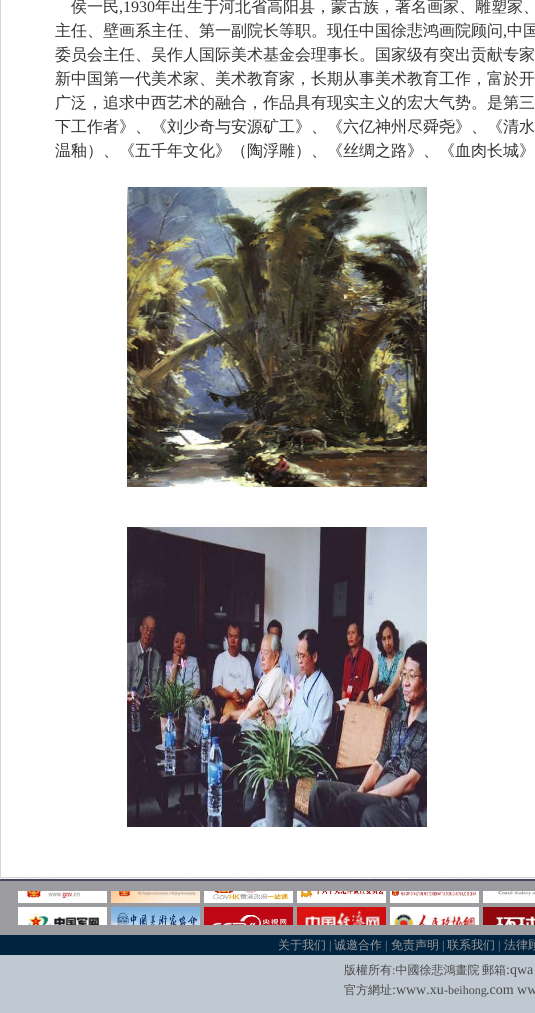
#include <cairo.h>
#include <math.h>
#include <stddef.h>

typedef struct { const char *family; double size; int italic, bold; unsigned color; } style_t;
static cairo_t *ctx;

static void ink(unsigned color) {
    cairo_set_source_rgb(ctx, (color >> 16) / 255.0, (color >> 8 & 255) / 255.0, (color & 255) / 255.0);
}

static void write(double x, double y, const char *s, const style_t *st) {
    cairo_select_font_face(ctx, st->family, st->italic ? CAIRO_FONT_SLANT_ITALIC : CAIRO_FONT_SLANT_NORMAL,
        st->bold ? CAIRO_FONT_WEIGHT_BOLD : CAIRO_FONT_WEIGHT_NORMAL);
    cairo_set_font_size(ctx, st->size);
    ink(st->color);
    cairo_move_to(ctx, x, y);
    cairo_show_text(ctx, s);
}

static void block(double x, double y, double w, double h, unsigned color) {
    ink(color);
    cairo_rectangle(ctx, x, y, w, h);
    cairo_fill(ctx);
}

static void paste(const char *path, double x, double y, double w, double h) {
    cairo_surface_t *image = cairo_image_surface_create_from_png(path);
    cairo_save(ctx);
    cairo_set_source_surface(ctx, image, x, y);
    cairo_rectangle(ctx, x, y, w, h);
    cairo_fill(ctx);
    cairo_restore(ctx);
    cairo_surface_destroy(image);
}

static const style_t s1 = {"WenQuanYi Zen Hei Medium", 16, 0, 0, 0x333333};
static const style_t s2 = {"Liberation Serif", 16, 0, 0, 0x333333};
static const style_t s3 = {"WenQuanYi Zen Hei Medium", 12, 0, 0, 0x999999};
static const style_t s4 = {"Liberation Serif", 12, 0, 0, 0x999999};
static const style_t s5 = {"WenQuanYi Zen Hei Medium", 12, 0, 0, 0x494949};
static const style_t s6 = {"Liberation Serif", 14, 0, 0, 0x494949};
static const style_t s7 = {"Liberation Serif", 12, 0, 0, 0x494949};

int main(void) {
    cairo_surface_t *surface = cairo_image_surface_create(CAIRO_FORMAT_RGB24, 535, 1013);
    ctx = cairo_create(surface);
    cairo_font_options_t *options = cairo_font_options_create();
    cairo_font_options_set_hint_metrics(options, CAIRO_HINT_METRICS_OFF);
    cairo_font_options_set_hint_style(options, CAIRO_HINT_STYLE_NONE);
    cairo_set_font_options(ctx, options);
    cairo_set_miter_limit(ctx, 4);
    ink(0xffffff);
    cairo_paint(ctx);
    paste("pic1.png", 0, 878, 535, 1);
    block(0, 877, 535, 1, 0xd6d8d8);
    block(0, 0, 1, 878, 0xd6d8d8);
    write(71, 12, "侯一民", &s1);
    write(119, 12, ",1930", &s2);
    write(155, 12, "年出生于河北省高阳县，蒙古族，著名画家、雕塑家、", &s1);
    write(55, 36, "主任、壁画系主任、第一副院长等职。现任中国徐悲鸿画院顾问", &s1);
    write(503, 36, ",", &s2);
    write(507, 36, "中国", &s1);
    write(55, 60, "委员会主任、吴作人国际美术基金会理事长。国家级有突出贡献专家", &s1);
    write(55, 84, "新中国第一代美术家、美术教育家，长期从事美术教育工作，富於开", &s1);
    write(55, 108, "广泛，追求中西艺术的融合，作品具有现实主义的宏大气势。是第三", &s1);
    write(55, 132, "下工作者》、《刘少奇与安源矿工》、《六亿神州尽舜尧》、《清水", &s1);
    write(55, 156, "温釉）、《五千年文化》（陶浮雕）、《丝绸之路》、《血肉长城》", &s1);
    paste("pic2.png", 127, 187, 300, 300);
    paste("pic3.png", 127, 527, 300, 300);
    block(0, 881, 535, 54, 0x9c9ba0);
    block(0, 879, 535, 2, 0x42495b);
    paste("pic4.png", 18, 891, 517, 34);
    block(0, 935, 535, 20, 0x002340);
    write(278, 949, "关于我们", &s3);
    write(329, 949, "|", &s4);
    write(334, 949, "诚邀合作", &s3);
    write(385, 949, "|", &s4);
    write(391, 949, "免责声明", &s3);
    write(442, 949, "|", &s4);
    write(447, 949, "联系我们", &s3);
    write(498, 949, "|", &s4);
    write(504, 949, "法律顾", &s3);
    block(0, 955, 535, 58, 0xc0c8d1);
    write(344, 974, "版權所有 中國徐悲鴻畫院", &s5);
    write(482, 974, "郵箱", &s5);
    write(506, 974, ":qwa", &s6);
    write(392, 974, ":", &s7);
    write(344, 994, "官方網址", &s5);
    write(392, 994, ":www.xu", &s6);
    write(444, 994, "-beihong", &s7);
    write(486, 994, ".com ww", &s6);
    cairo_surface_write_to_png(surface, "screenshot.png");
    cairo_font_options_destroy(options);
    cairo_destroy(ctx);
    cairo_surface_destroy(surface);
    return 0;
}
